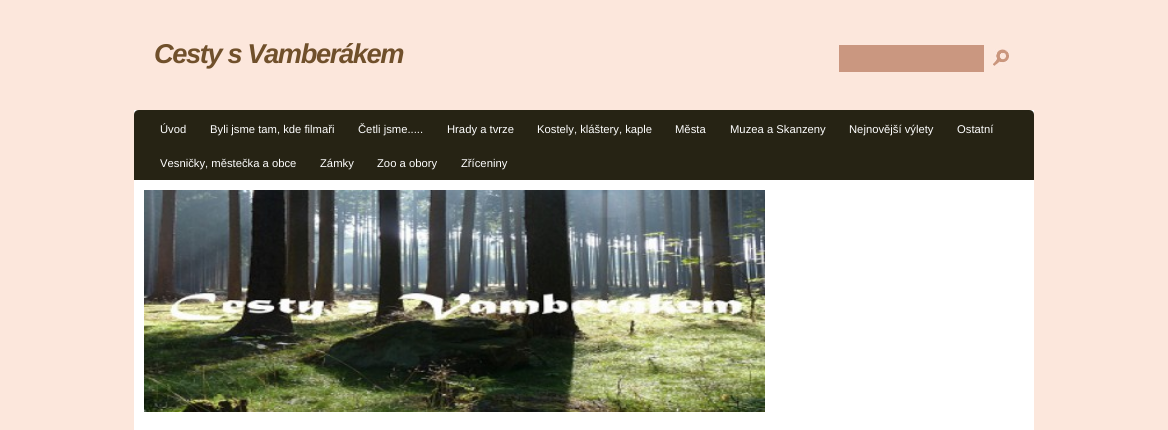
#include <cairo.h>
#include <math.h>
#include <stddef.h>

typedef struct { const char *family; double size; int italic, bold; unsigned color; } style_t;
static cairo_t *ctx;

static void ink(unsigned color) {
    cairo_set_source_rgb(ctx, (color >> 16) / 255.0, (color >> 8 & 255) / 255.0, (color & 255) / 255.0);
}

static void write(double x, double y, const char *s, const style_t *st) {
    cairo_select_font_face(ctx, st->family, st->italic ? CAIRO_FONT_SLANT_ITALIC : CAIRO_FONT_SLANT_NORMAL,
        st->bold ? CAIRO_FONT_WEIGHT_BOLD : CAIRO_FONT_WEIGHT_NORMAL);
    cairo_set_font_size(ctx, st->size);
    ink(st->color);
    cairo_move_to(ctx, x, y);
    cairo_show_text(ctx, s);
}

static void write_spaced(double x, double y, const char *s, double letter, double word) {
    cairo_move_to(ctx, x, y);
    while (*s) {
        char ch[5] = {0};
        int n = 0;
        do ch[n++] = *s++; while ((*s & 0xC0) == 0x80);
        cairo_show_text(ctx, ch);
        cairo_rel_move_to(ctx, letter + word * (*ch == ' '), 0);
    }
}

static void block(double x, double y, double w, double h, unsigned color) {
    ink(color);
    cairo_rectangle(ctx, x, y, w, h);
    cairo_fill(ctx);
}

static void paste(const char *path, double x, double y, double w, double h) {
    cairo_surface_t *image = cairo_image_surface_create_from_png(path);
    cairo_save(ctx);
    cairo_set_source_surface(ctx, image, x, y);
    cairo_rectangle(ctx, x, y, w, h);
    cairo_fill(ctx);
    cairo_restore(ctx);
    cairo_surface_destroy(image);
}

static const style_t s1 = {"Liberation Sans", 11.25, 0, 0, 0xffffff};

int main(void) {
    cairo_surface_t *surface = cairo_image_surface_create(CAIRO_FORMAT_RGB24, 1168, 430);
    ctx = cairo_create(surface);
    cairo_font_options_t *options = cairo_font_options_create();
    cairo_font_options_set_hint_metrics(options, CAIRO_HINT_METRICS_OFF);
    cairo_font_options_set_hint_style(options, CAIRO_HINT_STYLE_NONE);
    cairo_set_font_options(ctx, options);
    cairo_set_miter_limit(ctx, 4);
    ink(0xfce7dc);
    cairo_paint(ctx);
    block(134, 110, 900, 320, 0xffffff);
    paste("pic1.png", 144, 190, 621, 222);
    cairo_select_font_face(ctx, "Liberation Sans", CAIRO_FONT_SLANT_ITALIC, CAIRO_FONT_WEIGHT_BOLD);
    cairo_set_font_size(ctx, 27.25);
    ink(0x70502b);
    write_spaced(154, 63, "Cesty s Vamberákem", -1.4, 0);
    block(839, 45, 144, 26, 0xca9780);
    cairo_set_fill_rule(ctx, CAIRO_FILL_RULE_EVEN_ODD);
    cairo_new_path(ctx);
    cairo_move_to(ctx, 842, 45);
    cairo_line_to(ctx, 839, 46);
    cairo_line_to(ctx, 839, 72);
    cairo_line_to(ctx, 984, 72);
    cairo_line_to(ctx, 984, 45);
    cairo_close_path(ctx);
    cairo_move_to(ctx, 840, 46);
    cairo_line_to(ctx, 840, 71);
    cairo_line_to(ctx, 983, 71);
    cairo_line_to(ctx, 983, 46);
    cairo_close_path(ctx);
    cairo_fill(ctx);
    paste("pic2.png", 993, 49, 16, 18);
    ink(0x262314);
    cairo_new_path(ctx);
    cairo_move_to(ctx, 139, 110);
    cairo_line_to(ctx, 1029, 110);
    cairo_curve_to(ctx, 1032, 110, 1034, 112, 1034, 115);
    cairo_line_to(ctx, 1034, 180);
    cairo_line_to(ctx, 134, 180);
    cairo_line_to(ctx, 134, 115);
    cairo_curve_to(ctx, 134, 112, 136, 110, 139, 110);
    cairo_close_path(ctx);
    cairo_fill(ctx);
    write(160, 133, "Úvod", &s1);
    write(210, 133, "Byli jsme tam, kde filmaři", &s1);
    write(358, 133, "Četli jsme.....", &s1);
    write(447, 133, "Hrady a tvrze", &s1);
    write(537, 133, "Kostely, kláštery, kaple", &s1);
    write(675, 133, "Města", &s1);
    write(730, 133, "Muzea a Skanzeny", &s1);
    write(849, 133, "Nejnovější výlety", &s1);
    write(957, 133, "Ostatní", &s1);
    write(160, 167, "Vesničky, městečka a obce", &s1);
    write(320, 167, "Zámky", &s1);
    write(377, 167, "Zoo a obory", &s1);
    write(461, 167, "Zříceniny", &s1);
    cairo_surface_write_to_png(surface, "screenshot.png");
    cairo_font_options_destroy(options);
    cairo_destroy(ctx);
    cairo_surface_destroy(surface);
    return 0;
}
